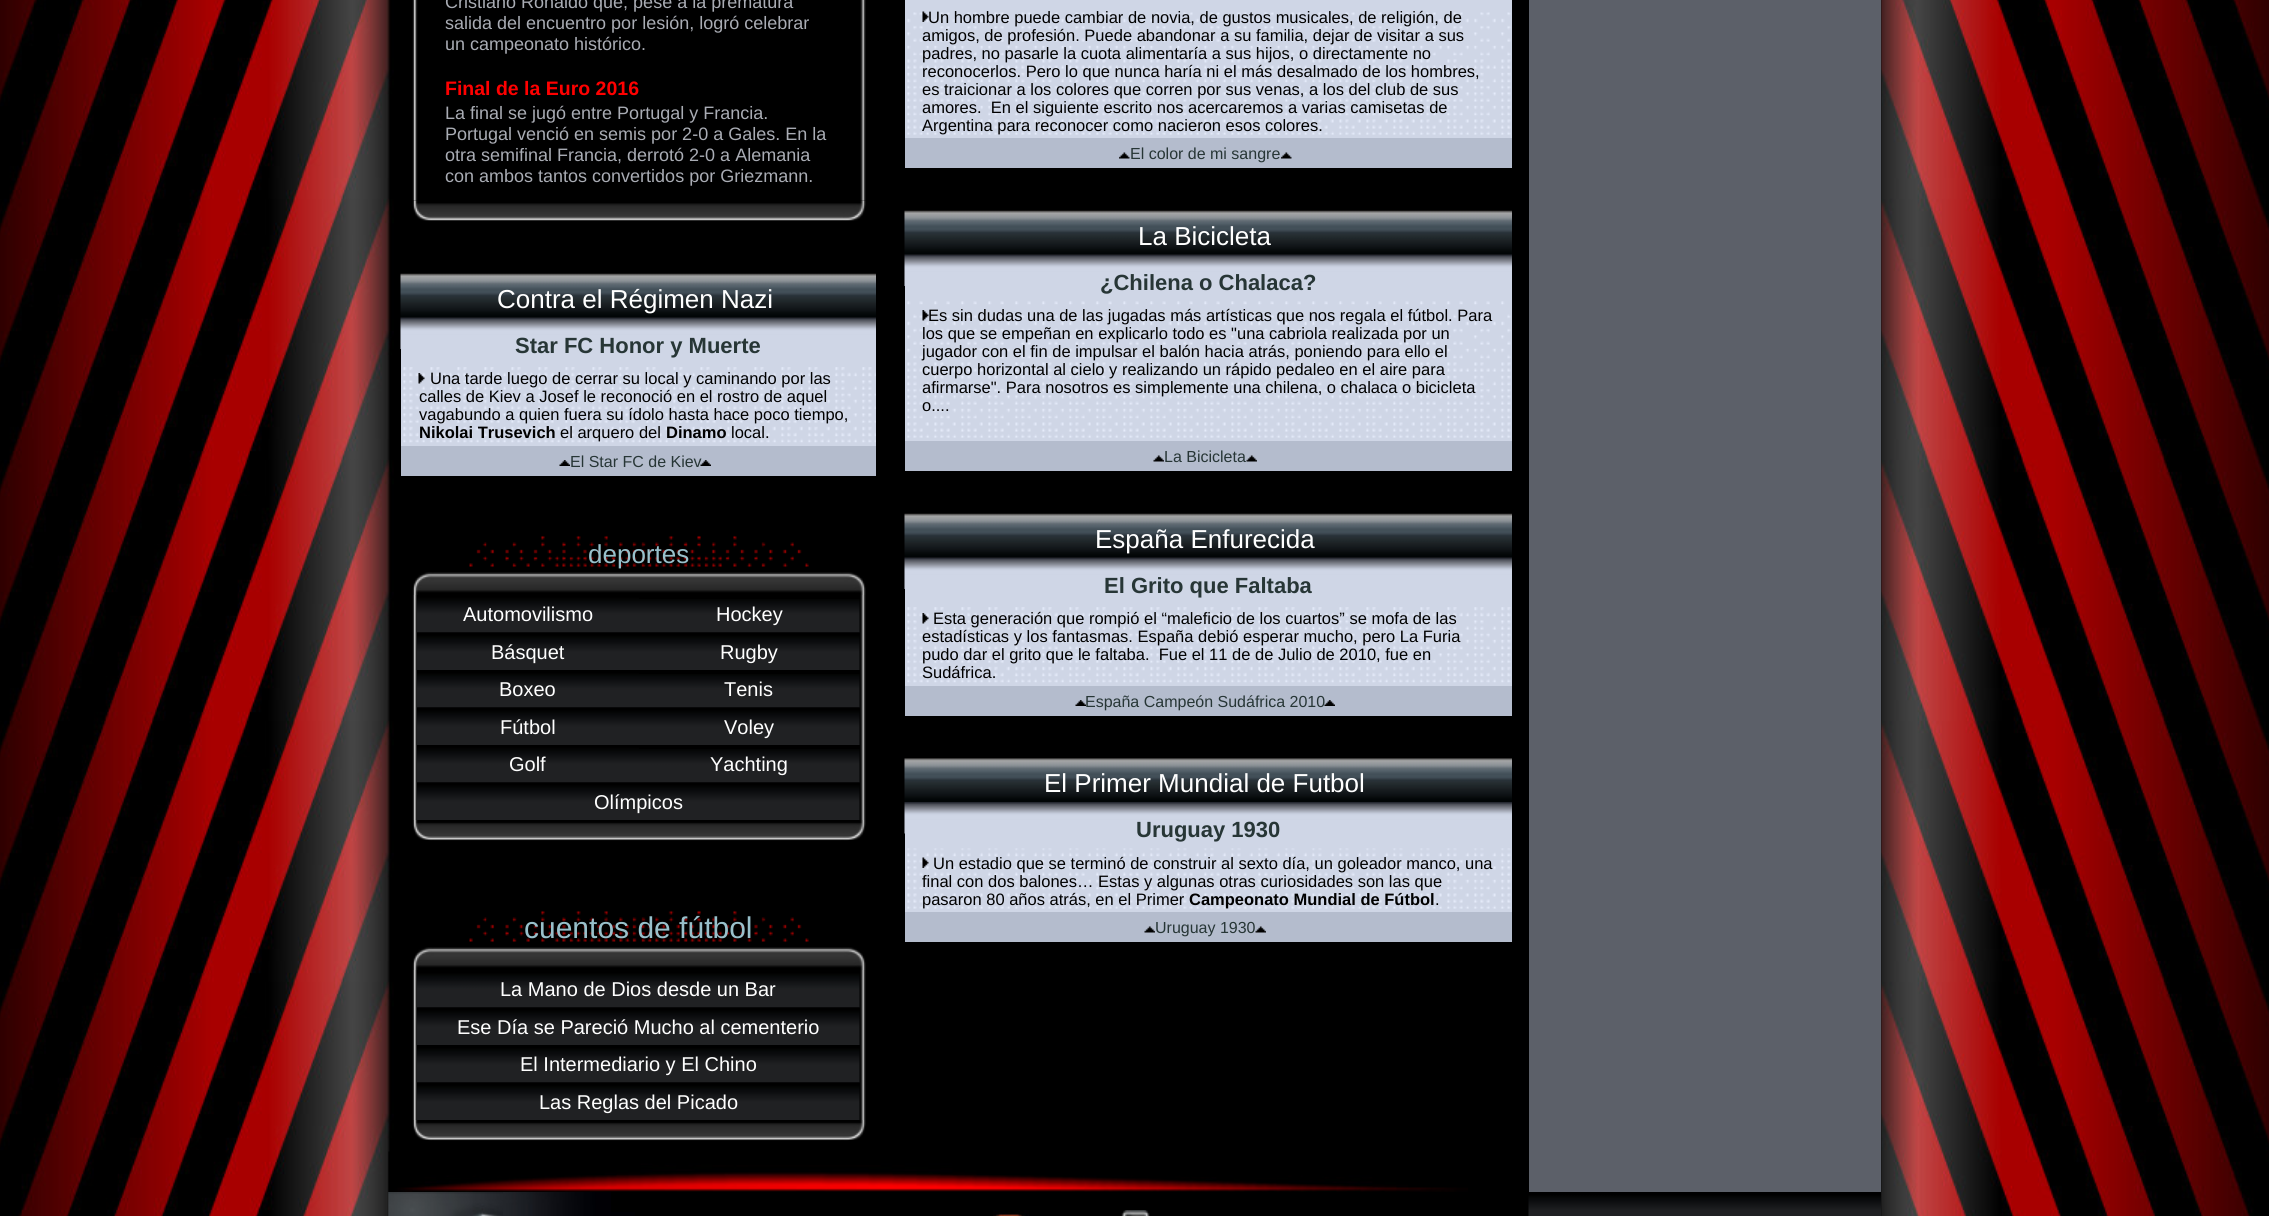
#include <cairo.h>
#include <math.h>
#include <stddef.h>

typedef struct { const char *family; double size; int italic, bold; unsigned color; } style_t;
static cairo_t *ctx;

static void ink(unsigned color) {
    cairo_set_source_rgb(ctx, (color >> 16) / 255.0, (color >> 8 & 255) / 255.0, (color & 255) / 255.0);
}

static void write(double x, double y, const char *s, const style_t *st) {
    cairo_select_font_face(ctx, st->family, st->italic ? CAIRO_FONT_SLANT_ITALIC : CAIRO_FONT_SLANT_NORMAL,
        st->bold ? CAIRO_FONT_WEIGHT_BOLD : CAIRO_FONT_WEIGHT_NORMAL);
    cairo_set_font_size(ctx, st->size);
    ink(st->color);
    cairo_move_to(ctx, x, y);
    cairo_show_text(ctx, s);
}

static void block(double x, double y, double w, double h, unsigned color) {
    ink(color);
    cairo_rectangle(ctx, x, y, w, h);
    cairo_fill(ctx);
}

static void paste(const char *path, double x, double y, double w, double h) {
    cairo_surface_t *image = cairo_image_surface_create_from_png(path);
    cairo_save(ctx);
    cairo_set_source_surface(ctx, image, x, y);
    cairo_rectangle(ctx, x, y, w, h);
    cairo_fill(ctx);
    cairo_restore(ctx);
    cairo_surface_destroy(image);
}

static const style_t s1 = {"Liberation Sans", 18, 0, 0, 0xa9acb4};
static const style_t s2 = {"Liberation Sans", 19.5, 0, 1, 0xff0000};
static const style_t s3 = {"Liberation Sans", 26, 0, 0, 0xffffff};
static const style_t s4 = {"Liberation Sans", 22, 0, 1, 0x273636};
static const style_t s5 = {"Liberation Sans", 16.5, 0, 0, 0x000000};
static const style_t s6 = {"Liberation Sans", 16.5, 0, 1, 0x000000};
static const style_t s7 = {"Liberation Sans", 16, 0, 0, 0x273636};
static const style_t s8 = {"Liberation Sans", 26, 0, 0, 0x98c0cb};
static const style_t s9 = {"Liberation Sans", 20, 0, 0, 0xffffff};
static const style_t s10 = {"Liberation Sans", 30, 0, 0, 0x98c0cb};

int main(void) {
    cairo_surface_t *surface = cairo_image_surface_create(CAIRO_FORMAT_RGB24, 2269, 1216);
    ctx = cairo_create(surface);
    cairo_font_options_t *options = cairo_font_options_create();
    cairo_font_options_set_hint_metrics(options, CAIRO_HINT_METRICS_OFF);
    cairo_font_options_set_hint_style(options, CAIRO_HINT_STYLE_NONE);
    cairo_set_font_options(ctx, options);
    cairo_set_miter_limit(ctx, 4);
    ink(0xffffff);
    cairo_paint(ctx);
    paste("pic1.png", 0, 0, 2269, 1216);
    paste("pic2.png", 388, 1151, 1080, 41);
    paste("pic3.png", 412, 0, 454, 201);
    write(445, 8, "Cristiano Ronaldo que, pese a la prematura", &s1);
    write(445, 29, "salida del encuentro por lesión, logró celebrar", &s1);
    write(445, 50, "un campeonato histórico.", &s1);
    write(445, 95, "Final de la Euro 2016", &s2);
    write(445, 119, "La final se jugó entre Portugal y Francia.", &s1);
    write(445, 140, "Portugal venció en semis por 2-0 a Gales. En la", &s1);
    write(445, 161, "otra semifinal Francia, derrotó 2-0 a Alemania", &s1);
    write(445, 182, "con ambos tantos convertidos por Griezmann.", &s1);
    paste("pic4.png", 412, 200, 454, 21);
    paste("pic5.png", 400, 273, 476, 44);
    write(497, 308, "Contra el Régimen Nazi", &s3);
    block(401, 349, 475, 97, 0xcfd6e6);
    paste("pic6.png", 400, 317, 476, 32);
    write(515, 353, "Star FC Honor y Muerte", &s4);
    paste("pic7.png", 403, 367, 473, 76);
    paste("pic8.png", 418, 373, 7, 11);
    write(430, 384, "Una tarde luego de cerrar su local y caminando por las", &s5);
    write(419, 402, "calles de Kiev a Josef le reconoció en el rostro de aquel", &s5);
    write(419, 420, "vagabundo a quien fuera su ídolo hasta hace poco tiempo,", &s5);
    write(419, 438, "Nikolai Trusevich", &s6);
    write(560, 438, "el arquero del", &s5);
    write(666, 438, "Dinamo", &s6);
    write(731, 438, "local.", &s5);
    block(401, 446, 475, 30, 0xb4bccd);
    paste("pic9.png", 559, 460, 11, 6);
    write(570, 467, "El Star FC de Kiev", &s7);
    paste("pic10.png", 700, 460, 11, 6);
    paste("pic11.png", 469, 535, 340, 33);
    write(588, 563, "deportes", &s8);
    paste("pic12.png", 412, 572, 454, 23);
    paste("pic13.png", 412, 595, 454, 225);
    paste("pic14.png", 417, 595, 222, 38);
    write(463, 621, "Automovilismo", &s9);
    paste("pic15.png", 639, 599, 221, 34);
    write(716, 621, "Hockey", &s9);
    paste("pic16.png", 417, 632, 222, 38);
    write(491, 659, "Básquet", &s9);
    paste("pic17.png", 639, 632, 221, 38);
    write(720, 659, "Rugby", &s9);
    paste("pic18.png", 417, 670, 222, 38);
    write(499, 696, "Boxeo", &s9);
    paste("pic19.png", 639, 674, 221, 34);
    write(724, 696, "Tenis", &s9);
    paste("pic20.png", 417, 707, 222, 38);
    write(500, 734, "Fútbol", &s9);
    paste("pic21.png", 639, 707, 221, 38);
    write(724, 734, "Voley", &s9);
    paste("pic22.png", 417, 745, 222, 38);
    write(509, 771, "Golf", &s9);
    paste("pic23.png", 639, 749, 221, 34);
    write(710, 771, "Yachting", &s9);
    paste("pic24.png", 417, 782, 443, 38);
    write(594, 809, "Olímpicos", &s9);
    paste("pic25.png", 412, 820, 454, 21);
    paste("pic11.png", 469, 910, 340, 33);
    write(524, 938, "cuentos de fútbol", &s10);
    paste("pic12.png", 412, 947, 454, 23);
    paste("pic26.png", 412, 970, 454, 150);
    paste("pic27.png", 417, 970, 443, 38);
    write(500, 996, "La Mano de Dios desde un Bar", &s9);
    paste("pic28.png", 417, 1007, 443, 38);
    write(457, 1034, "Ese Día se Pareció Mucho al cementerio", &s9);
    paste("pic29.png", 417, 1045, 443, 38);
    write(520, 1071, "El Intermediario y El Chino", &s9);
    paste("pic30.png", 417, 1082, 443, 38);
    write(539, 1109, "Las Reglas del Picado", &s9);
    paste("pic25.png", 412, 1120, 454, 21);
    block(905, 0, 607, 138, 0xcfd6e6);
    paste("pic31.png", 907, 12, 604, 123);
    paste("pic32.png", 922, 11, 7, 11);
    write(928, 23, "Un hombre puede cambiar de novia, de gustos musicales, de religión, de", &s5);
    write(922, 41, "amigos, de profesión. Puede abandonar a su familia, dejar de visitar a sus", &s5);
    write(922, 59, "padres, no pasarle la cuota alimentaría a sus hijos, o directamente no", &s5);
    write(922, 77, "reconocerlos. Pero lo que nunca haría ni el más desalmado de los hombres,", &s5);
    write(922, 95, "es traicionar a los colores que corren por sus venas, a los del club de sus", &s5);
    write(922, 113, "amores.  En el siguiente escrito nos acercaremos a varias camisetas de", &s5);
    write(922, 131, "Argentina para reconocer como nacieron esos colores.", &s5);
    block(905, 138, 607, 30, 0xb4bccd);
    paste("pic33.png", 1119, 152, 11, 7);
    write(1130, 159, "El color de mi sangre", &s7);
    paste("pic34.png", 1281, 152, 11, 7);
    paste("pic35.png", 904, 210, 608, 44);
    write(1138, 245, "La Bicicleta", &s3);
    block(905, 286, 607, 155, 0xcfd6e6);
    paste("pic36.png", 904, 254, 608, 32);
    write(1100, 290, "¿Chilena o Chalaca?", &s4);
    paste("pic37.png", 907, 301, 604, 137);
    paste("pic38.png", 922, 310, 7, 11);
    write(928, 321, "Es sin dudas una de las jugadas más artísticas que nos regala el fútbol. Para", &s5);
    write(922, 339, "los que se empeñan en explicarlo todo es \"una cabriola realizada por un", &s5);
    write(922, 357, "jugador con el fin de impulsar el balón hacia atrás, poniendo para ello el", &s5);
    write(922, 375, "cuerpo horizontal al cielo y realizando un rápido pedaleo en el aire para", &s5);
    write(922, 393, "afirmarse\". Para nosotros es simplemente una chilena, o chalaca o bicicleta", &s5);
    write(922, 411, "o....", &s5);
    block(905, 441, 607, 30, 0xb4bccd);
    paste("pic39.png", 1153, 455, 11, 7);
    write(1164, 462, "La Bicicleta", &s7);
    paste("pic40.png", 1246, 455, 11, 7);
    paste("pic41.png", 904, 513, 608, 44);
    write(1095, 548, "España Enfurecida", &s3);
    block(905, 589, 607, 97, 0xcfd6e6);
    paste("pic42.png", 904, 557, 608, 32);
    write(1104, 593, "El Grito que Faltaba", &s4);
    paste("pic43.png", 907, 607, 604, 76);
    paste("pic44.png", 922, 613, 7, 11);
    write(933, 624, "Esta generación que rompió el “maleficio de los cuartos” se mofa de las", &s5);
    write(922, 642, "estadísticas y los fantasmas. España debió esperar mucho, pero La Furia", &s5);
    write(922, 660, "pudo dar el grito que le faltaba.  Fue el 11 de de Julio de 2010, fue en", &s5);
    write(922, 678, "Sudáfrica.", &s5);
    block(905, 686, 607, 30, 0xb4bccd);
    paste("pic45.png", 1075, 700, 11, 6);
    write(1085, 707, "España Campeón Sudáfrica 2010", &s7);
    paste("pic46.png", 1324, 700, 11, 6);
    paste("pic47.png", 904, 758, 608, 44);
    write(1044, 792, "El Primer Mundial de Futbol", &s3);
    block(905, 833, 607, 79, 0xcfd6e6);
    paste("pic48.png", 904, 802, 608, 32);
    write(1136, 837, "Uruguay 1930", &s4);
    paste("pic49.png", 907, 848, 604, 61);
    paste("pic50.png", 922, 857, 7, 11);
    write(933, 869, "Un estadio que se terminó de construir al sexto día, un goleador manco, una", &s5);
    write(922, 887, "final con dos balones… Estas y algunas otras curiosidades son las que", &s5);
    write(922, 905, "pasaron 80 años atrás, en el Primer", &s5);
    write(1189, 905, "Campeonato Mundial de Fútbol", &s6);
    write(1435, 905, ".", &s5);
    block(905, 912, 607, 30, 0xb4bccd);
    paste("pic39.png", 1144, 926, 11, 7);
    write(1155, 933, "Uruguay 1930", &s7);
    paste("pic51.png", 1255, 926, 11, 7);
    block(1529, 0, 352, 1192, 0x5c6069);
    paste("pic52.png", 388, 1192, 223, 24);
    paste("pic53.png", 388, 1192, 115, 24);
    block(611, 1212, 24, 4, 0x000004);
    paste("pic54.png", 993, 1210, 36, 6);
    paste("pic55.png", 1121, 1210, 29, 6);
    paste("pic56.png", 1528, 1192, 353, 24);
    cairo_surface_write_to_png(surface, "screenshot.png");
    cairo_font_options_destroy(options);
    cairo_destroy(ctx);
    cairo_surface_destroy(surface);
    return 0;
}
